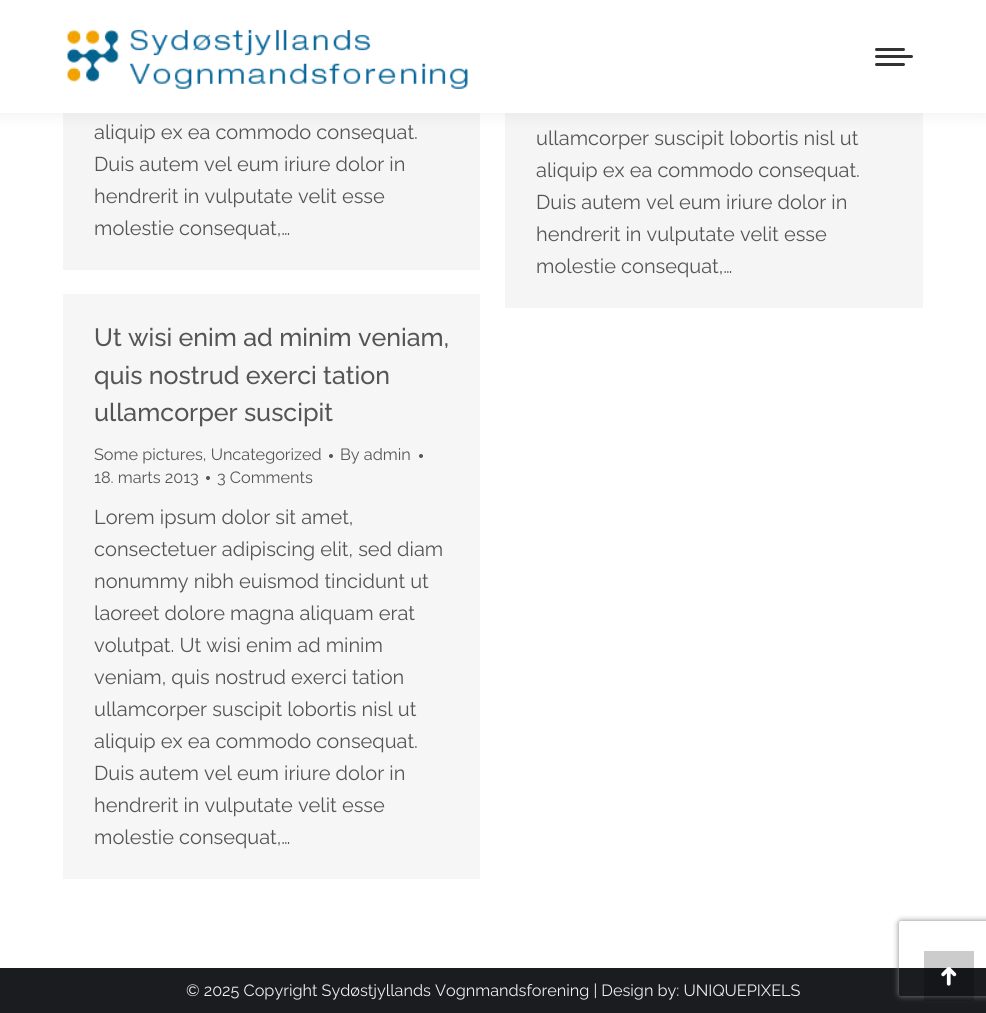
#include <cairo.h>
#include <math.h>
#include <stddef.h>

typedef struct { const char *family; double size; int italic, bold; unsigned color; } style_t;
static cairo_t *ctx;

static void ink(unsigned color) {
    cairo_set_source_rgb(ctx, (color >> 16) / 255.0, (color >> 8 & 255) / 255.0, (color & 255) / 255.0);
}

static void write(double x, double y, const char *s, const style_t *st) {
    cairo_select_font_face(ctx, st->family, st->italic ? CAIRO_FONT_SLANT_ITALIC : CAIRO_FONT_SLANT_NORMAL,
        st->bold ? CAIRO_FONT_WEIGHT_BOLD : CAIRO_FONT_WEIGHT_NORMAL);
    cairo_set_font_size(ctx, st->size);
    ink(st->color);
    cairo_move_to(ctx, x, y);
    cairo_show_text(ctx, s);
}

static void block(double x, double y, double w, double h, unsigned color) {
    ink(color);
    cairo_rectangle(ctx, x, y, w, h);
    cairo_fill(ctx);
}

static void round_path(double x, double y, double w, double h, double r) {
    cairo_new_sub_path(ctx);
    cairo_arc(ctx, x + w - r, y + h - r, r, 0, M_PI / 2);
    cairo_arc(ctx, x + r, y + h - r, r, M_PI / 2, M_PI);
    cairo_arc(ctx, x + r, y + r, r, M_PI, 1.5 * M_PI);
    cairo_arc(ctx, x + w - r, y + r, r, 1.5 * M_PI, 2 * M_PI);
    cairo_close_path(ctx);
}

static void blur_box(double x, double y, double w, double h, double r, double blur, double alpha) {
    cairo_push_group_with_content(ctx, CAIRO_CONTENT_ALPHA);
    cairo_set_operator(ctx, CAIRO_OPERATOR_SOURCE);
    for (int i = 15; i >= -15 && fmin(w, h) + blur * i / 3 > 0; i -= 2) {
        double e = blur * i / 6;
        cairo_set_source_rgba(ctx, 0, 0, 0, alpha * erfc((i - 1) / 8.5) / 2);
        round_path(x - e, y - e, w + 2 * e, h + 2 * e, fmax(0, fmin(r + e + blur * .6, fmin(w, h) / 2 + e)));
        cairo_fill(ctx);
    }
    cairo_pattern_t *soft = cairo_pop_group(ctx);
    cairo_mask(ctx, soft);
    cairo_pattern_destroy(soft);
}

static void paste(const char *path, double x, double y, double w, double h) {
    cairo_surface_t *image = cairo_image_surface_create_from_png(path);
    cairo_save(ctx);
    cairo_set_source_surface(ctx, image, x, y);
    cairo_rectangle(ctx, x, y, w, h);
    cairo_fill(ctx);
    cairo_restore(ctx);
    cairo_surface_destroy(image);
}

static const style_t s1 = {"Raleway", 20, 0, 0, 0x555555};
static const style_t s2 = {"Raleway Medium", 25, 0, 0, 0x555555};
static const style_t s3 = {"Raleway", 16.25, 0, 0, 0x555555};
static const style_t s4 = {"Raleway", 16.25, 0, 0, 0xeeeeee};

int main(void) {
    cairo_surface_t *surface = cairo_image_surface_create(CAIRO_FORMAT_RGB24, 986, 1013);
    ctx = cairo_create(surface);
    cairo_font_options_t *options = cairo_font_options_create();
    cairo_font_options_set_hint_metrics(options, CAIRO_HINT_METRICS_OFF);
    cairo_font_options_set_hint_style(options, CAIRO_HINT_STYLE_NONE);
    cairo_set_font_options(ctx, options);
    cairo_set_miter_limit(ctx, 4);
    ink(0xffffff);
    cairo_paint(ctx);
    block(63, 113, 417, 157, 0xf5f5f5);
    block(505, 113, 418, 195, 0xf5f5f5);
    ink(0x000000);
    blur_box(-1, -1, 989, 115, 0, 9.5, 0.07);
    block(0, 0, 986, 113, 0xffffff);
    paste("pic1.png", 67, 29, 401, 60);
    ink(0x333333);
    round_path(875, 48, 30, 3, 1.5);
    cairo_fill(ctx);
    round_path(875, 55, 38, 3, 1.5);
    cairo_fill(ctx);
    round_path(875, 63, 30, 3, 1.5);
    cairo_fill(ctx);
    write(94, 139, "aliquip ex ea commodo consequat.", &s1);
    write(94, 171, "Duis autem vel eum iriure dolor in", &s1);
    write(94, 203, "hendrerit in vulputate velit esse", &s1);
    write(94, 235, "molestie consequat,…", &s1);
    write(536, 145, "ullamcorper suscipit lobortis nisl ut", &s1);
    write(536, 177, "aliquip ex ea commodo consequat.", &s1);
    write(536, 209, "Duis autem vel eum iriure dolor in", &s1);
    write(536, 241, "hendrerit in vulputate velit esse", &s1);
    write(536, 273, "molestie consequat,…", &s1);
    block(63, 294, 417, 585, 0xf6f6f6);
    write(94, 346, "Ut wisi enim ad minim veniam,", &s2);
    write(94, 384, "quis nostrud exerci tation", &s2);
    write(94, 421, "ullamcorper suscipit", &s2);
    write(94, 460, "Some pictures, Uncategorized", &s3);
    cairo_new_path(ctx);
    cairo_arc(ctx, 331, 456, 2, 0, 2 * M_PI);
    cairo_fill(ctx);
    write(340, 460, "By admin", &s3);
    cairo_new_path(ctx);
    cairo_arc(ctx, 421, 456, 2, 0, 2 * M_PI);
    cairo_fill(ctx);
    write(94, 483, "18. marts 2013", &s3);
    cairo_new_path(ctx);
    cairo_arc(ctx, 208, 478, 2, 0, 2 * M_PI);
    cairo_fill(ctx);
    write(217, 483, "3 Comments", &s3);
    write(94, 524, "Lorem ipsum dolor sit amet,", &s1);
    write(94, 556, "consectetuer adipiscing elit, sed diam", &s1);
    write(94, 588, "nonummy nibh euismod tincidunt ut", &s1);
    write(94, 620, "laoreet dolore magna aliquam erat", &s1);
    write(94, 652, "volutpat. Ut wisi enim ad minim", &s1);
    write(94, 684, "veniam, quis nostrud exerci tation", &s1);
    write(94, 716, "ullamcorper suscipit lobortis nisl ut", &s1);
    write(94, 748, "aliquip ex ea commodo consequat.", &s1);
    write(94, 780, "Duis autem vel eum iriure dolor in", &s1);
    write(94, 812, "hendrerit in vulputate velit esse", &s1);
    write(94, 844, "molestie consequat,…", &s1);
    block(0, 968, 986, 45, 0x1a1c20);
    write(186, 996, "© 2025 Copyright Sydøstjyllands Vognmandsforening | Design by: UNIQUEPIXELS", &s4);
    cairo_save(ctx);
    cairo_set_fill_rule(ctx, CAIRO_FILL_RULE_EVEN_ODD);
    cairo_new_path(ctx);
    cairo_move_to(ctx, 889, 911);
    cairo_line_to(ctx, 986, 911);
    cairo_line_to(ctx, 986, 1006);
    cairo_line_to(ctx, 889, 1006);
    cairo_close_path(ctx);
    cairo_move_to(ctx, 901.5, 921);
    cairo_line_to(ctx, 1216.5, 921);
    cairo_curve_to(ctx, 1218, 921, 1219, 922, 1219, 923.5);
    cairo_line_to(ctx, 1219, 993.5);
    cairo_curve_to(ctx, 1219, 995, 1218, 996, 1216.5, 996);
    cairo_line_to(ctx, 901.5, 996);
    cairo_curve_to(ctx, 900, 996, 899, 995, 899, 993.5);
    cairo_line_to(ctx, 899, 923.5);
    cairo_curve_to(ctx, 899, 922, 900, 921, 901.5, 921);
    cairo_close_path(ctx);
    cairo_clip(ctx);
    ink(0x808080);
    blur_box(899, 921, 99, 75, 2.5, 3, 1);
    cairo_restore(ctx);
    cairo_set_source_rgba(ctx, 0, 0, 0, 0.2);
    cairo_rectangle(ctx, 924, 951, 50, 50);
    cairo_fill(ctx);
    paste("pic2.png", 941, 967, 16, 19);
    cairo_surface_write_to_png(surface, "screenshot.png");
    cairo_font_options_destroy(options);
    cairo_destroy(ctx);
    cairo_surface_destroy(surface);
    return 0;
}
